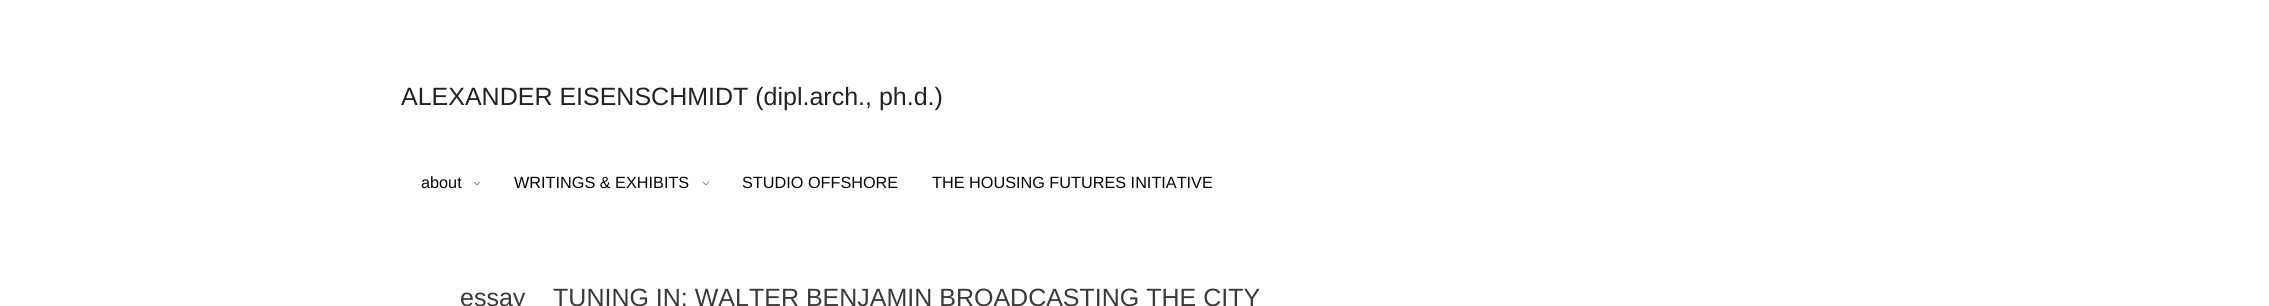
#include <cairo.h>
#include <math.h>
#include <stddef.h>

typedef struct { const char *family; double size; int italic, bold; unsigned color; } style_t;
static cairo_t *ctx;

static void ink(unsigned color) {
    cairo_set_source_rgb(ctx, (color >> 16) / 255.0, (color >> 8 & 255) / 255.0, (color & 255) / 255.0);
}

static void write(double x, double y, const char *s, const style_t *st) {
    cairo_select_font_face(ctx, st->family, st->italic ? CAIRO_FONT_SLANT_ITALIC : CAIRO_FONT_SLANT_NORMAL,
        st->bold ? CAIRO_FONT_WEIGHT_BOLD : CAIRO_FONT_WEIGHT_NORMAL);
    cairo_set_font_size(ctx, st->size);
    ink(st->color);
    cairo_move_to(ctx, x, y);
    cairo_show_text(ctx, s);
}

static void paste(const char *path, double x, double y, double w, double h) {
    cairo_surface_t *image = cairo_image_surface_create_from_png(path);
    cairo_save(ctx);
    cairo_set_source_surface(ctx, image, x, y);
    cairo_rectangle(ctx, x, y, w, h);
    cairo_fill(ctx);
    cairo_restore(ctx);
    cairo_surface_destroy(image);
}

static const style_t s1 = {"Liberation Sans", 25, 0, 0, 0x222222};
static const style_t s2 = {"Liberation Sans", 16.25, 0, 0, 0x070606};
static const style_t s3 = {"Liberation Sans", 25, 0, 0, 0x3a3a3a};

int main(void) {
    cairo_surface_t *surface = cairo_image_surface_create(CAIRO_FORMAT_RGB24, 2269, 306);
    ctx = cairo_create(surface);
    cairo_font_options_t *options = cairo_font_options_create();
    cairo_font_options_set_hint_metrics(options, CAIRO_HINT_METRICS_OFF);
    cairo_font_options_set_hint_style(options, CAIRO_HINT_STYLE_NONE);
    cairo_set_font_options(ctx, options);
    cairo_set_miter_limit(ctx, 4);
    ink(0xffffff);
    cairo_paint(ctx);
    write(401, 105, "ALEXANDER EISENSCHMIDT (dipl.arch., ph.d.)", &s1);
    write(421, 188, "about", &s2);
    paste("pic1.png", 474, 181, 7, 4);
    write(514, 188, "WRITINGS & EXHIBITS", &s2);
    paste("pic2.png", 702, 181, 7, 4);
    write(742, 188, "STUDIO OFFSHORE", &s2);
    write(932, 188, "THE HOUSING FUTURES INITIATIVE", &s2);
    write(460, 306, "essay _ TUNING IN: WALTER BENJAMIN BROADCASTING THE CITY", &s3);
    cairo_surface_write_to_png(surface, "screenshot.png");
    cairo_font_options_destroy(options);
    cairo_destroy(ctx);
    cairo_surface_destroy(surface);
    return 0;
}
